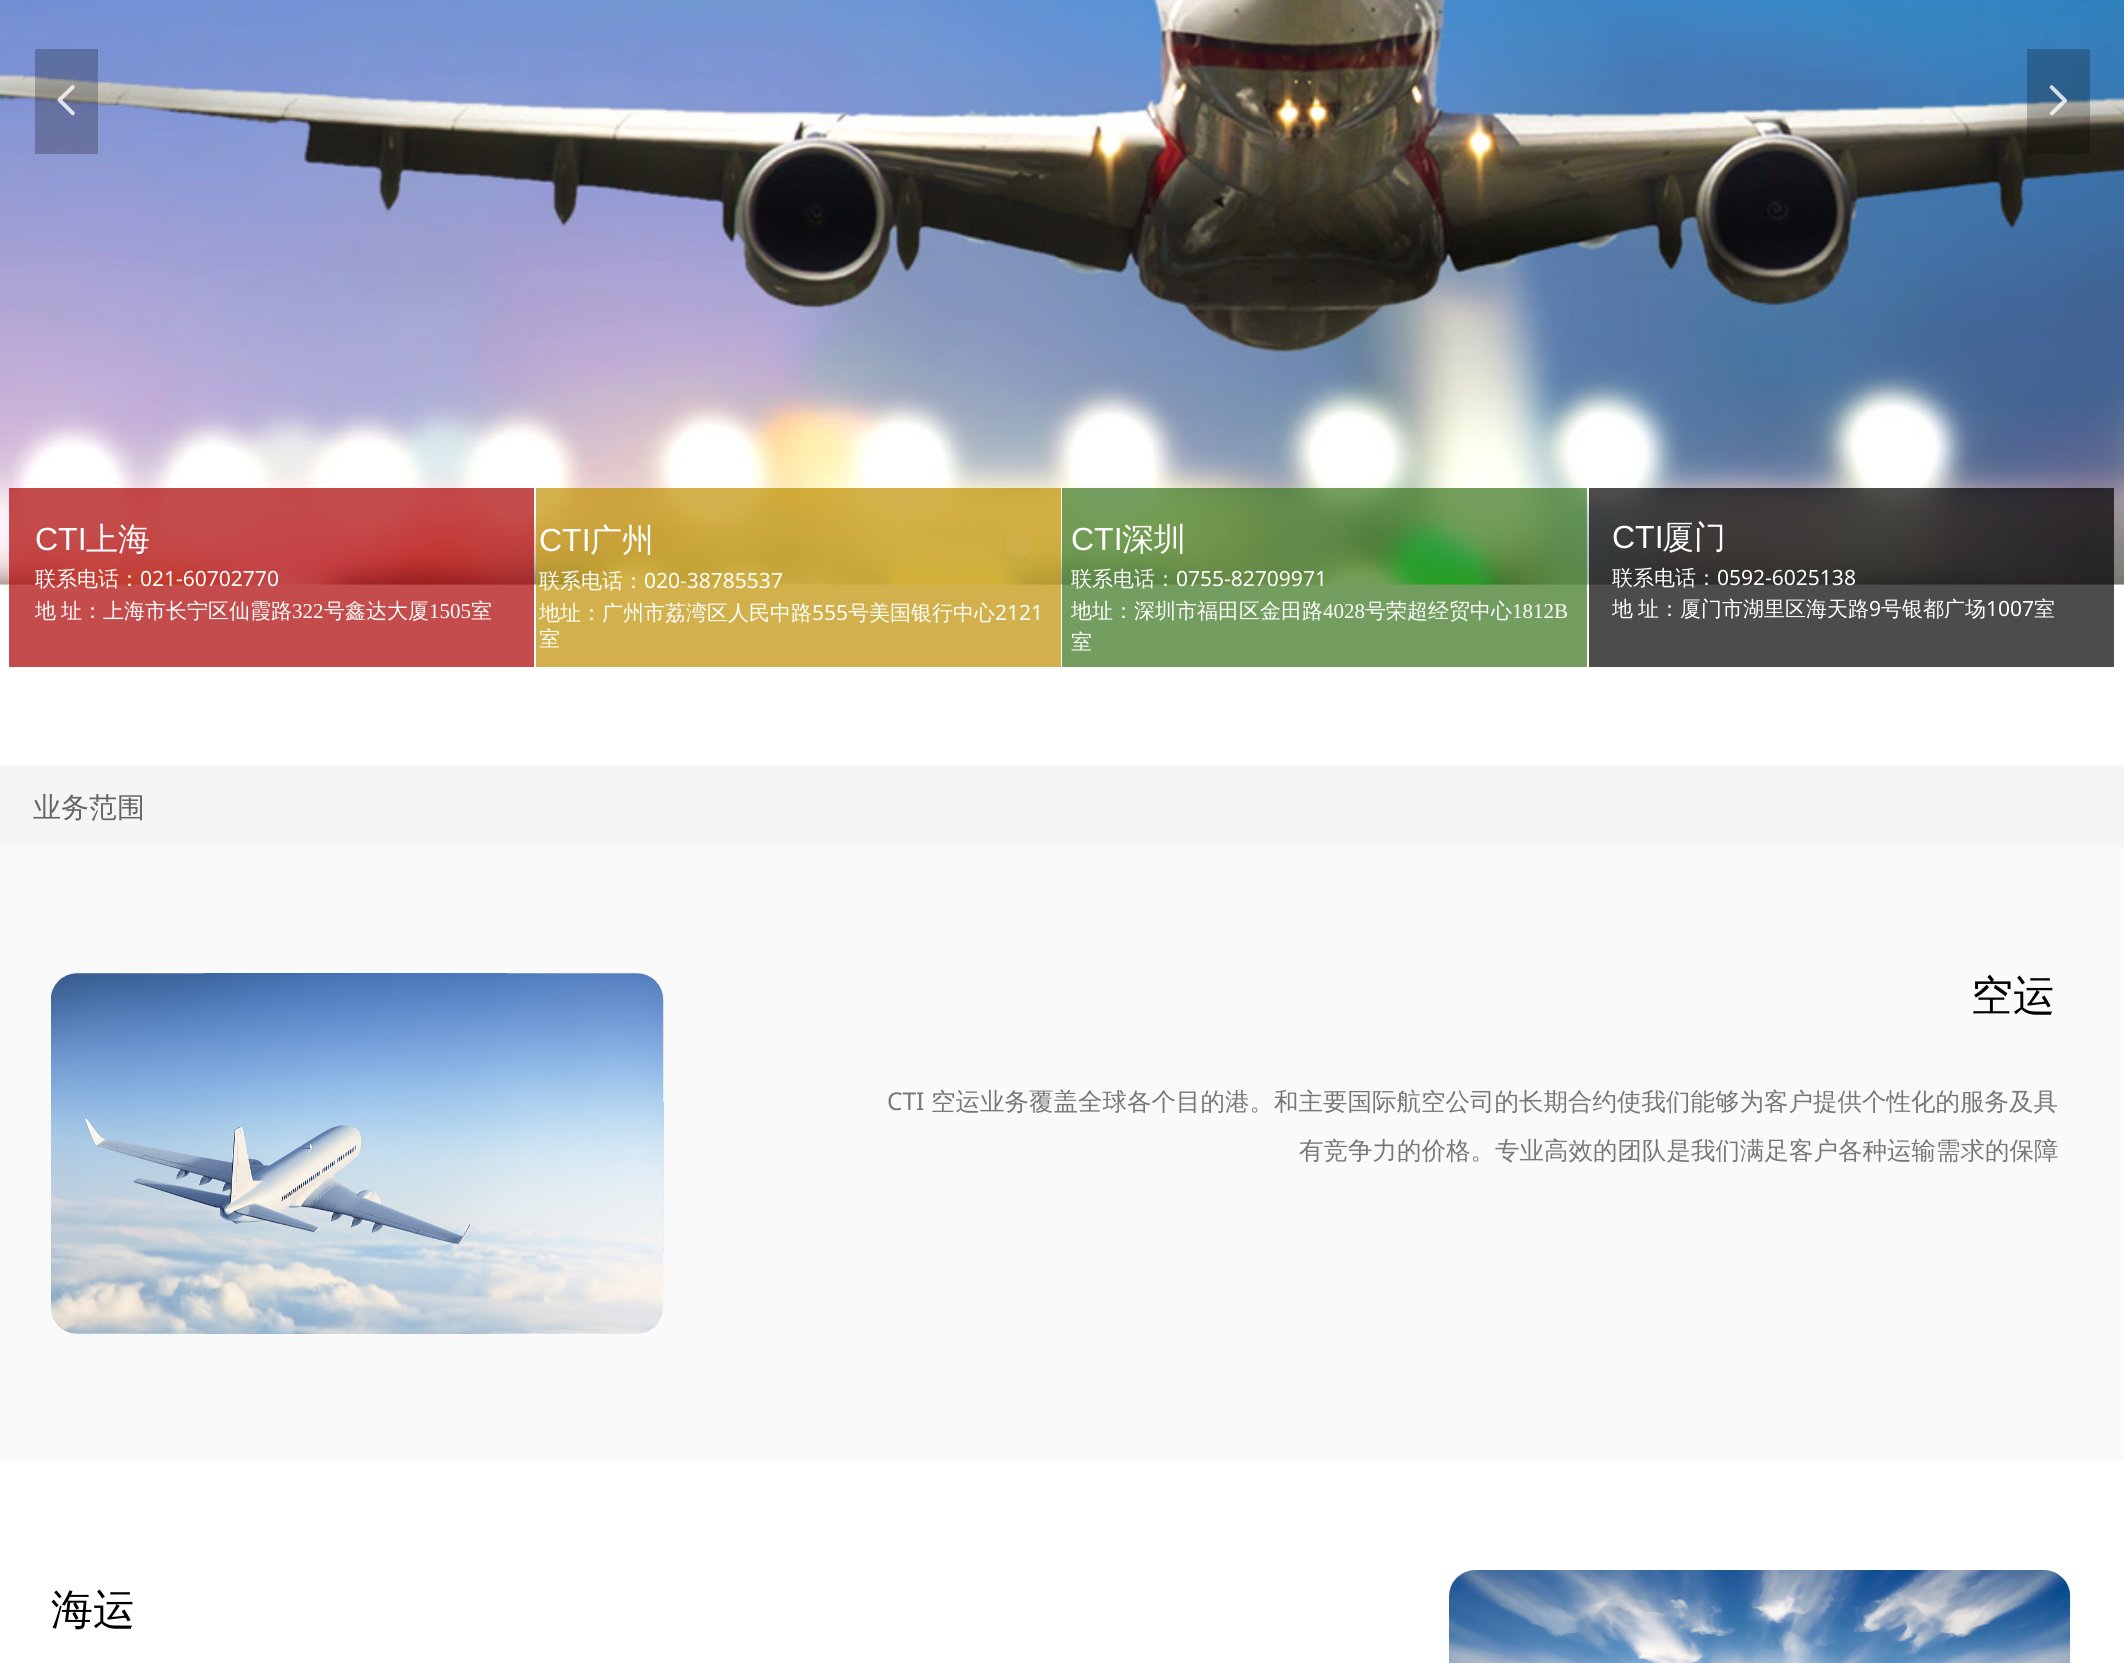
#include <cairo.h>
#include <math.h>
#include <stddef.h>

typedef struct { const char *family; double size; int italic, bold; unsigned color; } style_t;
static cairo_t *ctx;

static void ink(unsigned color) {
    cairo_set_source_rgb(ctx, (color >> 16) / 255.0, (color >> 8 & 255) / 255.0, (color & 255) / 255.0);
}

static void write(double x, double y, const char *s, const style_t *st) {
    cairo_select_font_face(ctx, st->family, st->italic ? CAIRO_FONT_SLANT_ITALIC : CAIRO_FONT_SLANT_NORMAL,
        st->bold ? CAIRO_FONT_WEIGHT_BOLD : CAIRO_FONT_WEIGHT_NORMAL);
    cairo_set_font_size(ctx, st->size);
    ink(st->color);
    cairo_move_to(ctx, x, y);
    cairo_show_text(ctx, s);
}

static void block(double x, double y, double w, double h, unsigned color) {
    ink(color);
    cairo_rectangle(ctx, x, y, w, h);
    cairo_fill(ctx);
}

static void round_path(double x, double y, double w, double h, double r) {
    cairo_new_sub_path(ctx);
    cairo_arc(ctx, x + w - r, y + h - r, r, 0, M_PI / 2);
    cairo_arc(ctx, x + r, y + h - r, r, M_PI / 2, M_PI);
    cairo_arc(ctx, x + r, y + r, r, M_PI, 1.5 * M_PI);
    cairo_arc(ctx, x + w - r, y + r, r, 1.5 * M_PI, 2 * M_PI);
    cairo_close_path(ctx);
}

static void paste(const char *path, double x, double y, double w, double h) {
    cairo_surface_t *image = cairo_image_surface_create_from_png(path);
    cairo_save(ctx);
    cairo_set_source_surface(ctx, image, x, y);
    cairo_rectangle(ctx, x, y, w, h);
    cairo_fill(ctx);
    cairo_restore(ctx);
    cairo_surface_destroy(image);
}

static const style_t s1 = {"Liberation Sans", 32, 0, 0, 0xffffff};
static const style_t s2 = {"WenQuanYi Zen Hei Medium", 32, 0, 0, 0xffffff};
static const style_t s3 = {"WenQuanYi Zen Hei Medium", 21, 0, 0, 0xffffff};
static const style_t s4 = {"Noto Sans", 21, 0, 0, 0xffffff};
static const style_t s5 = {"Liberation Serif", 21, 0, 0, 0xffffff};
static const style_t s6 = {"WenQuanYi Zen Hei Medium", 28, 0, 0, 0x666666};
static const style_t s7 = {"WenQuanYi Zen Hei Medium", 42, 0, 0, 0x000000};
static const style_t s8 = {"Noto Sans", 24.5, 0, 0, 0x777777};
static const style_t s9 = {"WenQuanYi Zen Hei Medium", 24.5, 0, 0, 0x777777};

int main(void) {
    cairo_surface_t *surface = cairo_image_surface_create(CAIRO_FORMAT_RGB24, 2124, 1663);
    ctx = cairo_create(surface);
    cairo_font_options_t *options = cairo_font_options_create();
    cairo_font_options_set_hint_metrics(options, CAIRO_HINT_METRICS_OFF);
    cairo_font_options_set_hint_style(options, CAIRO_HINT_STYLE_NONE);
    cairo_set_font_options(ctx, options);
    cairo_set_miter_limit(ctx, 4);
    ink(0xffffff);
    cairo_paint(ctx);
    paste("pic1.png", 0, 0, 2124, 585);
    cairo_set_source_rgba(ctx, 0, 0, 0, 0.24);
    cairo_rectangle(ctx, 35, 49, 63, 105);
    cairo_fill(ctx);
    paste("pic2.png", 57, 85, 18, 31);
    cairo_rectangle(ctx, 2027, 49, 63, 105);
    cairo_fill(ctx);
    paste("pic3.png", 2049, 85, 18, 31);
    cairo_set_source_rgba(ctx, 1, 1, 1, 0.6);
    cairo_arc(ctx, 1019.5, 543.5, 13.5, 0, 2 * M_PI);
    cairo_fill(ctx);
    cairo_set_source_rgba(ctx, 1, 1, 1, 0.15);
    round_path(1050, 530, 26, 27, 13);
    cairo_fill(ctx);
    round_path(1094, 530, 26, 27, 13);
    cairo_fill(ctx);
    cairo_set_source_rgba(ctx, 0.675, 0, 0, 0.7);
    cairo_rectangle(ctx, 9, 488, 525, 179);
    cairo_fill(ctx);
    write(35, 550, "CTI", &s1);
    write(86, 550, "上海", &s2);
    write(35, 586, "联系电话：", &s3);
    write(140, 586, "021-60702770", &s4);
    write(35, 618, "地", &s3);
    write(61, 618, "址：上海市长宁区仙霞路", &s3);
    write(292, 618, "322", &s5);
    write(324, 618, "号鑫达大厦", &s3);
    write(429, 618, "1505", &s5);
    write(471, 618, "室", &s3);
    cairo_set_source_rgba(ctx, 0.749, 0.565, 0, 0.7);
    cairo_rectangle(ctx, 536, 488, 525, 179);
    cairo_fill(ctx);
    write(539, 551, "CTI", &s1);
    write(590, 551, "广州", &s2);
    write(539, 588, "联系电话：", &s3);
    write(644, 588, "020-38785537", &s4);
    write(539, 620, "地址：广州市荔湾区人民中路", &s3);
    write(812, 620, "555", &s4);
    write(848, 620, "号美国银行中心", &s3);
    write(995, 620, "2121", &s4);
    write(539, 646, "室", &s3);
    cairo_set_source_rgba(ctx, 0.22, 0.463, 0.114, 0.7);
    cairo_rectangle(ctx, 1062, 488, 525, 179);
    cairo_fill(ctx);
    write(1071, 550, "CTI", &s1);
    write(1122, 550, "深圳", &s2);
    write(1071, 586, "联系电话：", &s3);
    write(1176, 586, "0755-82709971", &s4);
    write(1071, 618, "地址：深圳市福田区金田路", &s3);
    write(1323, 618, "4028", &s5);
    write(1365, 618, "号荣超经贸中心", &s3);
    write(1512, 618, "1812B", &s5);
    write(1071, 649, "室", &s3);
    cairo_set_source_rgba(ctx, 0, 0, 0, 0.7);
    cairo_rectangle(ctx, 1589, 488, 525, 179);
    cairo_fill(ctx);
    write(1612, 548, "CTI", &s1);
    write(1662, 548, "厦门", &s2);
    write(1612, 585, "联系电话：", &s3);
    write(1717, 585, "0592-6025138", &s4);
    write(1612, 616, "地", &s3);
    write(1638, 616, "址：厦门市湖里区海天路", &s3);
    write(1869, 616, "9", &s4);
    write(1881, 616, "号银都广场", &s3);
    write(1986, 616, "1007", &s4);
    write(2034, 616, "室", &s3);
    block(0, 765, 2124, 82, 0xf5f5f5);
    write(33, 817, "业务范围", &s6);
    block(0, 847, 2124, 613, 0xfafafa);
    paste("pic4.png", 51, 973, 613, 361);
    write(1971, 1010, "空运", &s7);
    write(887, 1110, "CTI", &s8);
    write(931, 1110, "空运业务覆盖全球各个目的港。和主要国际航空公司的长期合约使我们能够为客户提供个性化的服务及具", &s9);
    write(1299, 1159, "有竞争力的价格。专业高效的团队是我们满足客户各种运输需求的保障", &s9);
    write(51, 1624, "海运", &s7);
    paste("pic5.png", 1449, 1570, 622, 93);
    cairo_surface_write_to_png(surface, "screenshot.png");
    cairo_font_options_destroy(options);
    cairo_destroy(ctx);
    cairo_surface_destroy(surface);
    return 0;
}
